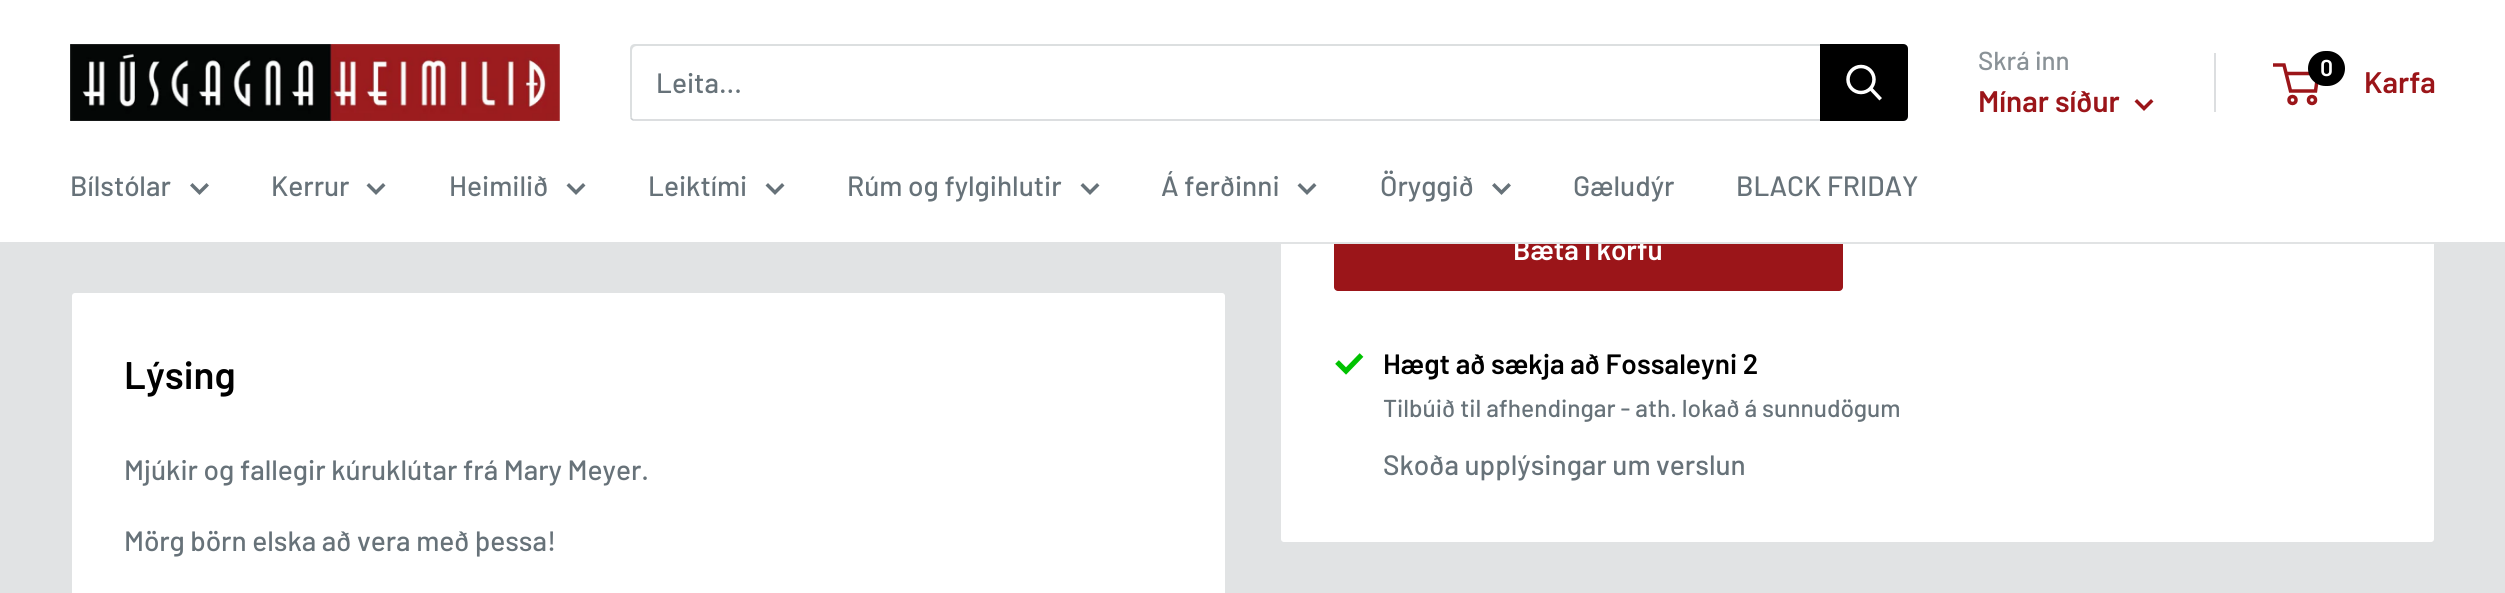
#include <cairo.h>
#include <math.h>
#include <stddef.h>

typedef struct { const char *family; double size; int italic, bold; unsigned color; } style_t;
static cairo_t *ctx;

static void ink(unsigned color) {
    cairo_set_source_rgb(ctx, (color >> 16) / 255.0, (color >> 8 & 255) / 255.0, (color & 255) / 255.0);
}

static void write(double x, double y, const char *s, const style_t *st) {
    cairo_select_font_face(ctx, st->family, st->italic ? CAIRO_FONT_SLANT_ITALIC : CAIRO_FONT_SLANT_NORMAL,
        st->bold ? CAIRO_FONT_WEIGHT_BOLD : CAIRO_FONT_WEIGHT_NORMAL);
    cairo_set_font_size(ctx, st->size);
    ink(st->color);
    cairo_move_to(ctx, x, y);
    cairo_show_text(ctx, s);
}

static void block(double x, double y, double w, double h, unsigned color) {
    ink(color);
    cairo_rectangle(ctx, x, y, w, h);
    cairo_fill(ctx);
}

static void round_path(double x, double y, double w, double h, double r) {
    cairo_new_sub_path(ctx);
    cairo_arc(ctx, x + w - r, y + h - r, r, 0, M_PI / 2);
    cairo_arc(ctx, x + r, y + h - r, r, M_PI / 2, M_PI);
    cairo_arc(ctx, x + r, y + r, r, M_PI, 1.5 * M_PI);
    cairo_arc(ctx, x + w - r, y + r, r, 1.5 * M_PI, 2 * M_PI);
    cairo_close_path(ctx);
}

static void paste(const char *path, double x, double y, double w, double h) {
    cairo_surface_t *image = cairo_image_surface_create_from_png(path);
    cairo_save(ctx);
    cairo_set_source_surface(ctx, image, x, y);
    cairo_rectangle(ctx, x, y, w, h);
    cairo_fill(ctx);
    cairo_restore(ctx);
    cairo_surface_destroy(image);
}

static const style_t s1 = {"Barlow Medium", 28, 0, 0, 0x677279};
static const style_t s2 = {"Barlow Medium", 26, 0, 0, 0x8a9297};
static const style_t s3 = {"Barlow SemiBold", 29.75, 0, 0, 0x9b1519};
static const style_t s4 = {"Barlow SemiBold", 23, 0, 0, 0xffffff};
static const style_t s5 = {"Barlow SemiBold", 28, 0, 0, 0xffffff};
static const style_t s6 = {"Barlow SemiBold", 38.5, 0, 0, 0x000000};
static const style_t s7 = {"Barlow SemiBold", 28, 0, 0, 0x000000};
static const style_t s8 = {"Barlow Medium", 24.5, 0, 0, 0x677279};

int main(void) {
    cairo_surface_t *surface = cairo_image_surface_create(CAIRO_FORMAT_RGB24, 2505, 593);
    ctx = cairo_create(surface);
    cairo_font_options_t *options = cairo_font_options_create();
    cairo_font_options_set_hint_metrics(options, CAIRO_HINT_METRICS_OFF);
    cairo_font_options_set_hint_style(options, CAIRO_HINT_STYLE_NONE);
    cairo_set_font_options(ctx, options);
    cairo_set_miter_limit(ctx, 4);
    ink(0xe1e3e4);
    cairo_paint(ctx);
    ink(0xffffff);
    round_path(1280, -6, 1155, 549, 4);
    cairo_fill_preserve(ctx);
    ink(0xe1e3e4);
    cairo_stroke(ctx);
    ink(0x9b1519);
    round_path(1334, 207, 509, 84, 4);
    cairo_fill(ctx);
    block(0, 0, 2505, 242, 0xffffff);
    paste("pic1.png", 70, 44, 490, 77);
    ink(0xdcdee0);
    cairo_new_path(ctx);
    cairo_move_to(ctx, 630, 118);
    cairo_curve_to(ctx, 631, 120, 633, 121, 635, 121);
    cairo_line_to(ctx, 1903, 121);
    cairo_curve_to(ctx, 1906, 121, 1908, 119, 1908, 116);
    cairo_line_to(ctx, 1908, 49);
    cairo_curve_to(ctx, 1908, 47, 1907, 45, 1905, 45);
    cairo_line_to(ctx, 1906, 47);
    cairo_line_to(ctx, 1906, 114);
    cairo_curve_to(ctx, 1906, 117, 1903, 119, 1900, 119);
    cairo_line_to(ctx, 634, 119);
    cairo_close_path(ctx);
    cairo_fill(ctx);
    cairo_set_source_rgba(ctx, 0.541, 0.573, 0.592, 0.3);
    cairo_new_path(ctx);
    cairo_move_to(ctx, 637, 46);
    cairo_line_to(ctx, 1904, 46);
    cairo_curve_to(ctx, 1906, 46, 1907, 47, 1908, 48);
    cairo_curve_to(ctx, 1907, 45, 1905, 44, 1903, 44);
    cairo_line_to(ctx, 635, 44);
    cairo_curve_to(ctx, 632, 44, 630, 46, 630, 49);
    cairo_line_to(ctx, 630, 116);
    cairo_curve_to(ctx, 630, 118, 631, 120, 634, 121);
    cairo_curve_to(ctx, 633, 120, 632, 119, 632, 117);
    cairo_line_to(ctx, 632, 51);
    cairo_curve_to(ctx, 632, 48, 634, 46, 637, 46);
    cairo_close_path(ctx);
    cairo_fill(ctx);
    write(656, 93, "Leita...", &s1);
    ink(0x000000);
    cairo_new_path(ctx);
    cairo_move_to(ctx, 1820, 44);
    cairo_line_to(ctx, 1903, 44);
    cairo_curve_to(ctx, 1906, 44, 1908, 46, 1908, 49);
    cairo_line_to(ctx, 1908, 116);
    cairo_curve_to(ctx, 1908, 119, 1906, 121, 1903, 121);
    cairo_line_to(ctx, 1820, 121);
    cairo_close_path(ctx);
    cairo_fill(ctx);
    cairo_new_path(ctx);
    cairo_move_to(ctx, 1879.5, 98);
    cairo_line_to(ctx, 1871, 89);
    ink(0xffffff);
    cairo_set_line_width(ctx, 3.5);
    cairo_set_line_cap(ctx, CAIRO_LINE_CAP_SQUARE);
    cairo_stroke(ctx);
    cairo_arc(ctx, 1861, 79.5, 13, 0, 2 * M_PI);
    cairo_set_line_cap(ctx, CAIRO_LINE_CAP_BUTT);
    cairo_stroke(ctx);
    write(1978, 70, "Skrá inn", &s2);
    block(2214, 53, 2, 59, 0xdcdee0);
    write(1978, 112, "Mínar síður", &s3);
    cairo_new_path(ctx);
    cairo_move_to(ctx, 2151, 101.5);
    cairo_line_to(ctx, 2144, 108.5);
    cairo_line_to(ctx, 2137, 101.5);
    cairo_set_line_cap(ctx, CAIRO_LINE_CAP_SQUARE);
    cairo_stroke(ctx);
    cairo_arc(ctx, 2292.5, 100, 3.5, 0, 2 * M_PI);
    cairo_set_line_cap(ctx, CAIRO_LINE_CAP_BUTT);
    cairo_stroke(ctx);
    cairo_arc(ctx, 2312, 100, 3.5, 0, 2 * M_PI);
    cairo_stroke(ctx);
    cairo_new_path(ctx);
    cairo_move_to(ctx, 2286, 73.5);
    cairo_line_to(ctx, 2318, 73.5);
    cairo_line_to(ctx, 2315.5, 91);
    cairo_line_to(ctx, 2290.5, 91);
    cairo_line_to(ctx, 2284, 65);
    cairo_line_to(ctx, 2273, 65);
    cairo_stroke(ctx);
    ink(0x000000);
    round_path(2308, 51, 37, 35, 17.5);
    cairo_fill(ctx);
    write(2320, 76, "0", &s4);
    write(2364, 93, "Karfa", &s3);
    write(1513, 260, "Bæta í körfu", &s5);
    block(1281, 242, 1153, 2, 0xe1e3e4);
    write(70, 196, "Bílstólar", &s1);
    cairo_new_path(ctx);
    cairo_move_to(ctx, 206.5, 185.5);
    cairo_line_to(ctx, 199.5, 192.5);
    cairo_line_to(ctx, 192.5, 185.5);
    cairo_set_line_cap(ctx, CAIRO_LINE_CAP_SQUARE);
    cairo_stroke(ctx);
    write(271, 196, "Kerrur", &s1);
    cairo_new_path(ctx);
    cairo_move_to(ctx, 383, 185.5);
    cairo_line_to(ctx, 376, 192.5);
    cairo_line_to(ctx, 369, 185.5);
    cairo_stroke(ctx);
    write(449, 196, "Heimilið", &s1);
    cairo_new_path(ctx);
    cairo_move_to(ctx, 583, 185.5);
    cairo_line_to(ctx, 576, 192.5);
    cairo_line_to(ctx, 569, 185.5);
    cairo_stroke(ctx);
    write(648, 196, "Leiktími", &s1);
    cairo_new_path(ctx);
    cairo_move_to(ctx, 782, 185.5);
    cairo_line_to(ctx, 775, 192.5);
    cairo_line_to(ctx, 768, 185.5);
    cairo_stroke(ctx);
    write(847, 196, "Rúm og fylgihlutir", &s1);
    cairo_new_path(ctx);
    cairo_move_to(ctx, 1097, 185.5);
    cairo_line_to(ctx, 1090, 192.5);
    cairo_line_to(ctx, 1083, 185.5);
    cairo_stroke(ctx);
    write(1161, 196, "Á ferðinni", &s1);
    cairo_new_path(ctx);
    cairo_move_to(ctx, 1314, 185.5);
    cairo_line_to(ctx, 1307, 192.5);
    cairo_line_to(ctx, 1300, 185.5);
    cairo_stroke(ctx);
    write(1380, 196, "Öryggið", &s1);
    cairo_new_path(ctx);
    cairo_move_to(ctx, 1508.5, 185.5);
    cairo_line_to(ctx, 1501.5, 192.5);
    cairo_line_to(ctx, 1494.5, 185.5);
    cairo_stroke(ctx);
    write(1573, 196, "Gæludýr", &s1);
    write(1736, 196, "BLACK FRIDAY", &s1);
    ink(0xffffff);
    round_path(71, 292, 1155, 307, 4);
    cairo_fill_preserve(ctx);
    ink(0xe1e3e4);
    cairo_set_line_width(ctx, 2);
    cairo_set_line_cap(ctx, CAIRO_LINE_CAP_BUTT);
    cairo_stroke(ctx);
    write(124, 389, "Lýsing", &s6);
    write(124, 480, "Mjúkir og fallegir kúruklútar frá Mary Meyer.", &s1);
    write(124, 551, "Mörg börn elska að vera með þessa!", &s1);
    cairo_new_path(ctx);
    cairo_move_to(ctx, 1337, 362);
    cairo_line_to(ctx, 1346, 371);
    cairo_line_to(ctx, 1361.5, 355);
    ink(0x00c200);
    cairo_set_line_width(ctx, 5.2);
    cairo_stroke(ctx);
    write(1383, 374, "Hægt að sækja að Fossaleyni 2", &s7);
    write(1383, 417, "Tilbúið til afhendingar - ath. lokað á sunnudögum", &s8);
    write(1383, 475, "Skoða upplýsingar um verslun", &s1);
    cairo_surface_write_to_png(surface, "screenshot.png");
    cairo_font_options_destroy(options);
    cairo_destroy(ctx);
    cairo_surface_destroy(surface);
    return 0;
}
